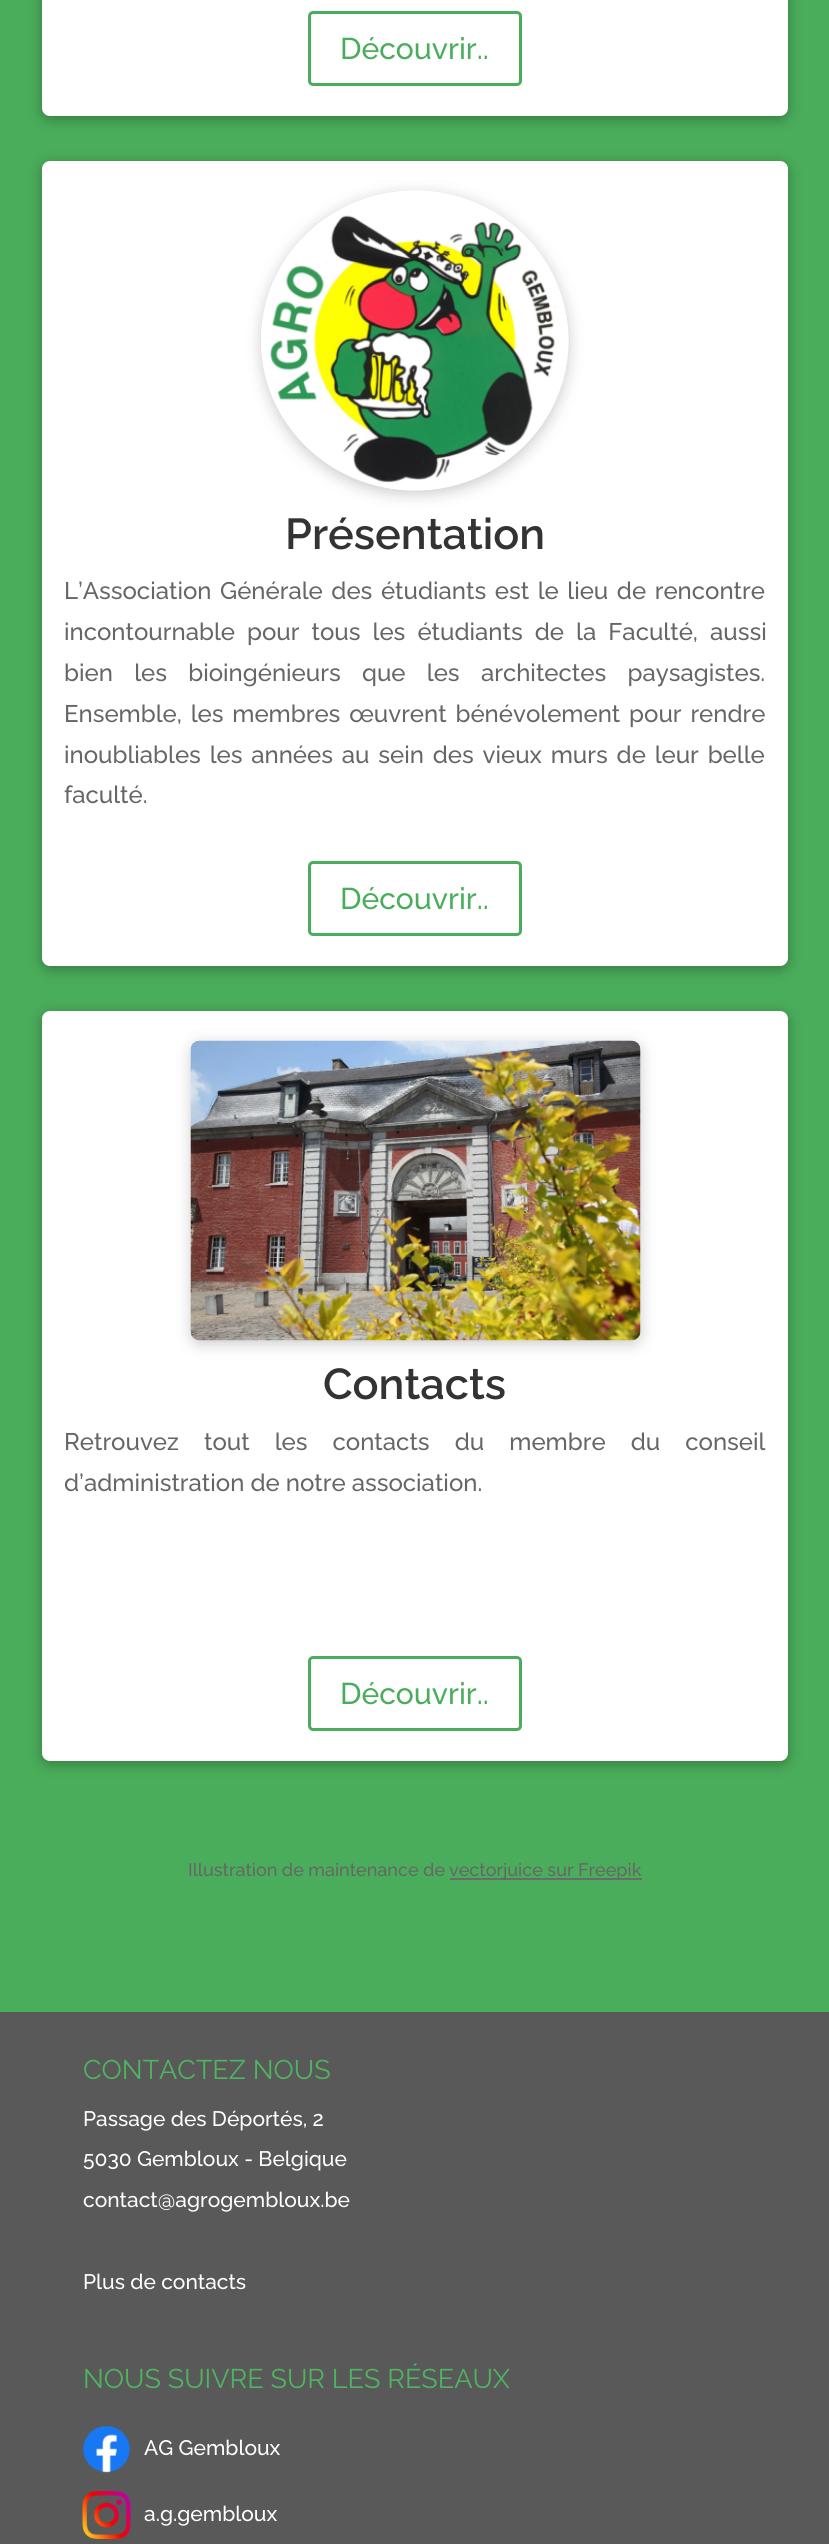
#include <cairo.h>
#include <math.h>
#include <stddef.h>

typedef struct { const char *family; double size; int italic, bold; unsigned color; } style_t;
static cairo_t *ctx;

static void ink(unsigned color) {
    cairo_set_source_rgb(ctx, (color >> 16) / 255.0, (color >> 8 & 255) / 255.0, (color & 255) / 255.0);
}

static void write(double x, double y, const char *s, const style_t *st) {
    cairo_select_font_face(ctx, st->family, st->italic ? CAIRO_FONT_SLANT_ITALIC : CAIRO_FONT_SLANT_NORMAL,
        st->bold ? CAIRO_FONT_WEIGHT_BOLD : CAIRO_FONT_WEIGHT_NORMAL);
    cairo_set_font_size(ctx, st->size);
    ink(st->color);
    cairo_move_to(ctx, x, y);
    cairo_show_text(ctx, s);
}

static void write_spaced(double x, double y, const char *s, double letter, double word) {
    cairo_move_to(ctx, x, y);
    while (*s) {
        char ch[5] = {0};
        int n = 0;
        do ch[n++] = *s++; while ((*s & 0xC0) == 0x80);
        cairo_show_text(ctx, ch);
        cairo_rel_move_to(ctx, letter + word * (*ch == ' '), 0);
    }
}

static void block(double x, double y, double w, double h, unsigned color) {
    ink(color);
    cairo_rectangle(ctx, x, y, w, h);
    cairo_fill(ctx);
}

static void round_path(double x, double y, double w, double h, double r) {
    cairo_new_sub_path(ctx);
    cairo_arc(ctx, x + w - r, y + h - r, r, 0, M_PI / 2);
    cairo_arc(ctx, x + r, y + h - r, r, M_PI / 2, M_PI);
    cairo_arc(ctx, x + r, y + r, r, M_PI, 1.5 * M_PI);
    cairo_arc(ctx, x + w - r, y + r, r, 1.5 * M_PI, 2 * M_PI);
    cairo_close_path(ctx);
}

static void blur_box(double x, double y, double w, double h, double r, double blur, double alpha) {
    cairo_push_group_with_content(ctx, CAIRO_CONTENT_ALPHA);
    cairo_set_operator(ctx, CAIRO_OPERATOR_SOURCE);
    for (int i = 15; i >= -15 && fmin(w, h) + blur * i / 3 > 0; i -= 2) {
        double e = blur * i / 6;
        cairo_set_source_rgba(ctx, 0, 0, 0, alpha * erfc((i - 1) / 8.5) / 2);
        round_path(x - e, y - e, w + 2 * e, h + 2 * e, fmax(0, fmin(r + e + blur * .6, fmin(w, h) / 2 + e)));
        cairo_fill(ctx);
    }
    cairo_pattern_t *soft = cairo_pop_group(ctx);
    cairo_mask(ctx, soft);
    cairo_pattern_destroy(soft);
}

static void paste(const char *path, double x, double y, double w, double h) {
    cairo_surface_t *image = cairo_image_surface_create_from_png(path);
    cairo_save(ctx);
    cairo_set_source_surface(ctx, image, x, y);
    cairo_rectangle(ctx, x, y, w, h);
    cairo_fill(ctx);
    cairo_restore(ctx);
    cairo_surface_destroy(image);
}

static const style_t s1 = {"Raleway Medium", 30, 0, 0, 0x4aad5b};
static const style_t s2 = {"Raleway SemiBold", 43.25, 0, 0, 0x333333};
static const style_t s3 = {"Raleway Medium", 24, 0, 0, 0x666666};
static const style_t s4 = {"Raleway Medium", 18, 0, 0, 0x666666};
static const style_t s5 = {"Raleway", 27, 0, 0, 0x4db55f};
static const style_t s6 = {"Raleway Medium", 21, 0, 0, 0xffffff};

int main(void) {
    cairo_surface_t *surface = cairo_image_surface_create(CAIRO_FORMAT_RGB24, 829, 2544);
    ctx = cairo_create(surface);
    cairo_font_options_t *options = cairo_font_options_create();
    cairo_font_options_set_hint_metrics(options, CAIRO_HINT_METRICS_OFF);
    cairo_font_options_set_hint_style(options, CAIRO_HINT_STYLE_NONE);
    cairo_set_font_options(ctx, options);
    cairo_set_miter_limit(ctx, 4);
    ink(0x5a5959);
    cairo_paint(ctx);
    block(0, 0, 829, 2012, 0x4aad5b);
    ink(0x000000);
    blur_box(42, -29, 746, 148, 8, 7, 0.3);
    ink(0xffffff);
    round_path(42, -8, 746, 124, 8);
    cairo_fill(ctx);
    round_path(309.5, 12.5, 211, 72, 3.5);
    ink(0x4aad5b);
    cairo_set_line_width(ctx, 3);
    cairo_stroke(ctx);
    write(340, 59, "Découvrir..", &s1);
    ink(0x000000);
    blur_box(42, 164, 746, 805, 8, 7, 0.3);
    ink(0xffffff);
    round_path(42, 161, 746, 805, 8);
    cairo_fill(ctx);
    cairo_save(ctx);
    cairo_set_fill_rule(ctx, CAIRO_FILL_RULE_EVEN_ODD);
    cairo_new_path(ctx);
    cairo_move_to(ctx, 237, 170);
    cairo_line_to(ctx, 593, 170);
    cairo_line_to(ctx, 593, 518);
    cairo_line_to(ctx, 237, 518);
    cairo_close_path(ctx);
    cairo_move_to(ctx, 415, 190.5);
    cairo_curve_to(ctx, 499.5, 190.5, 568.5, 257.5, 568.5, 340.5);
    cairo_curve_to(ctx, 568.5, 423.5, 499.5, 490.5, 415, 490.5);
    cairo_curve_to(ctx, 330, 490.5, 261, 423.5, 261, 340.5);
    cairo_curve_to(ctx, 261, 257.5, 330, 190.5, 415, 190.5);
    cairo_close_path(ctx);
    cairo_clip(ctx);
    ink(0x000000);
    blur_box(261, 194, 308, 300, 150, 7.5, 0.2);
    cairo_restore(ctx);
    paste("pic1.png", 270, 215, 286, 268);
    write(285, 549, "Présentation", &s2);
    cairo_select_font_face(ctx, "Raleway Medium", CAIRO_FONT_SLANT_NORMAL, CAIRO_FONT_WEIGHT_NORMAL);
    cairo_set_font_size(ctx, 24);
    ink(0x666666);
    write_spaced(64, 599, "L’Association Générale des étudiants est le lieu de rencontre", 0, 2.5);
    write_spaced(64, 640, "incontournable pour tous les étudiants de la Faculté, aussi", 0, 6);
    write_spaced(64, 681, "bien les bioingénieurs que les architectes paysagistes.", 0, 15.25);
    write_spaced(64, 722, "Ensemble, les membres œuvrent bénévolement pour rendre", 0, 2.75);
    write_spaced(64, 763, "inoubliables les années au sein des vieux murs de leur belle", 0, 2.75);
    write(64, 803, "faculté.", &s3);
    round_path(309.5, 862.5, 211, 72, 3.5);
    ink(0x4aad5b);
    cairo_stroke(ctx);
    write(340, 909, "Découvrir..", &s1);
    ink(0x000000);
    blur_box(42, 1014, 746, 750, 8, 7, 0.3);
    ink(0xffffff);
    round_path(42, 1011, 746, 750, 8);
    cairo_fill(ctx);
    ink(0x000000);
    blur_box(191, 1044, 450, 300, 9, 7.5, 0.2);
    paste("pic2.png", 190, 1040, 451, 301);
    write(323, 1399, "Contacts", &s2);
    cairo_select_font_face(ctx, "Raleway Medium", CAIRO_FONT_SLANT_NORMAL, CAIRO_FONT_WEIGHT_NORMAL);
    cairo_set_font_size(ctx, 24);
    ink(0x666666);
    write_spaced(64, 1450, "Retrouvez tout les contacts du membre du conseil", 0, 19);
    write(64, 1491, "d’administration de notre association.", &s3);
    round_path(309.5, 1657.5, 211, 72, 3.5);
    ink(0x4aad5b);
    cairo_stroke(ctx);
    write(340, 1704, "Découvrir..", &s1);
    write(188, 1876, "Illustration de maintenance de", &s4);
    block(450, 1878, 192, 2, 0x6b6b6b);
    write(449, 1876, "vectorjuice sur Freepik", &s4);
    write(83, 2079, "CONTACTEZ NOUS", &s5);
    write(83, 2126, "Passage des Déportés, 2", &s6);
    write(83, 2166, "5030 Gembloux - Belgique", &s6);
    write(83, 2207, "contact@agrogembloux.be", &s6);
    write(83, 2289, "Plus de contacts", &s6);
    write(83, 2388, "NOUS SUIVRE SUR LES RÉSEAUX", &s5);
    paste("pic3.png", 82, 2425, 49, 48);
    write(144, 2455, "AG Gembloux", &s6);
    paste("pic4.png", 82, 2491, 49, 48);
    write(144, 2521, "a.g.gembloux", &s6);
    cairo_surface_write_to_png(surface, "screenshot.png");
    cairo_font_options_destroy(options);
    cairo_destroy(ctx);
    cairo_surface_destroy(surface);
    return 0;
}
